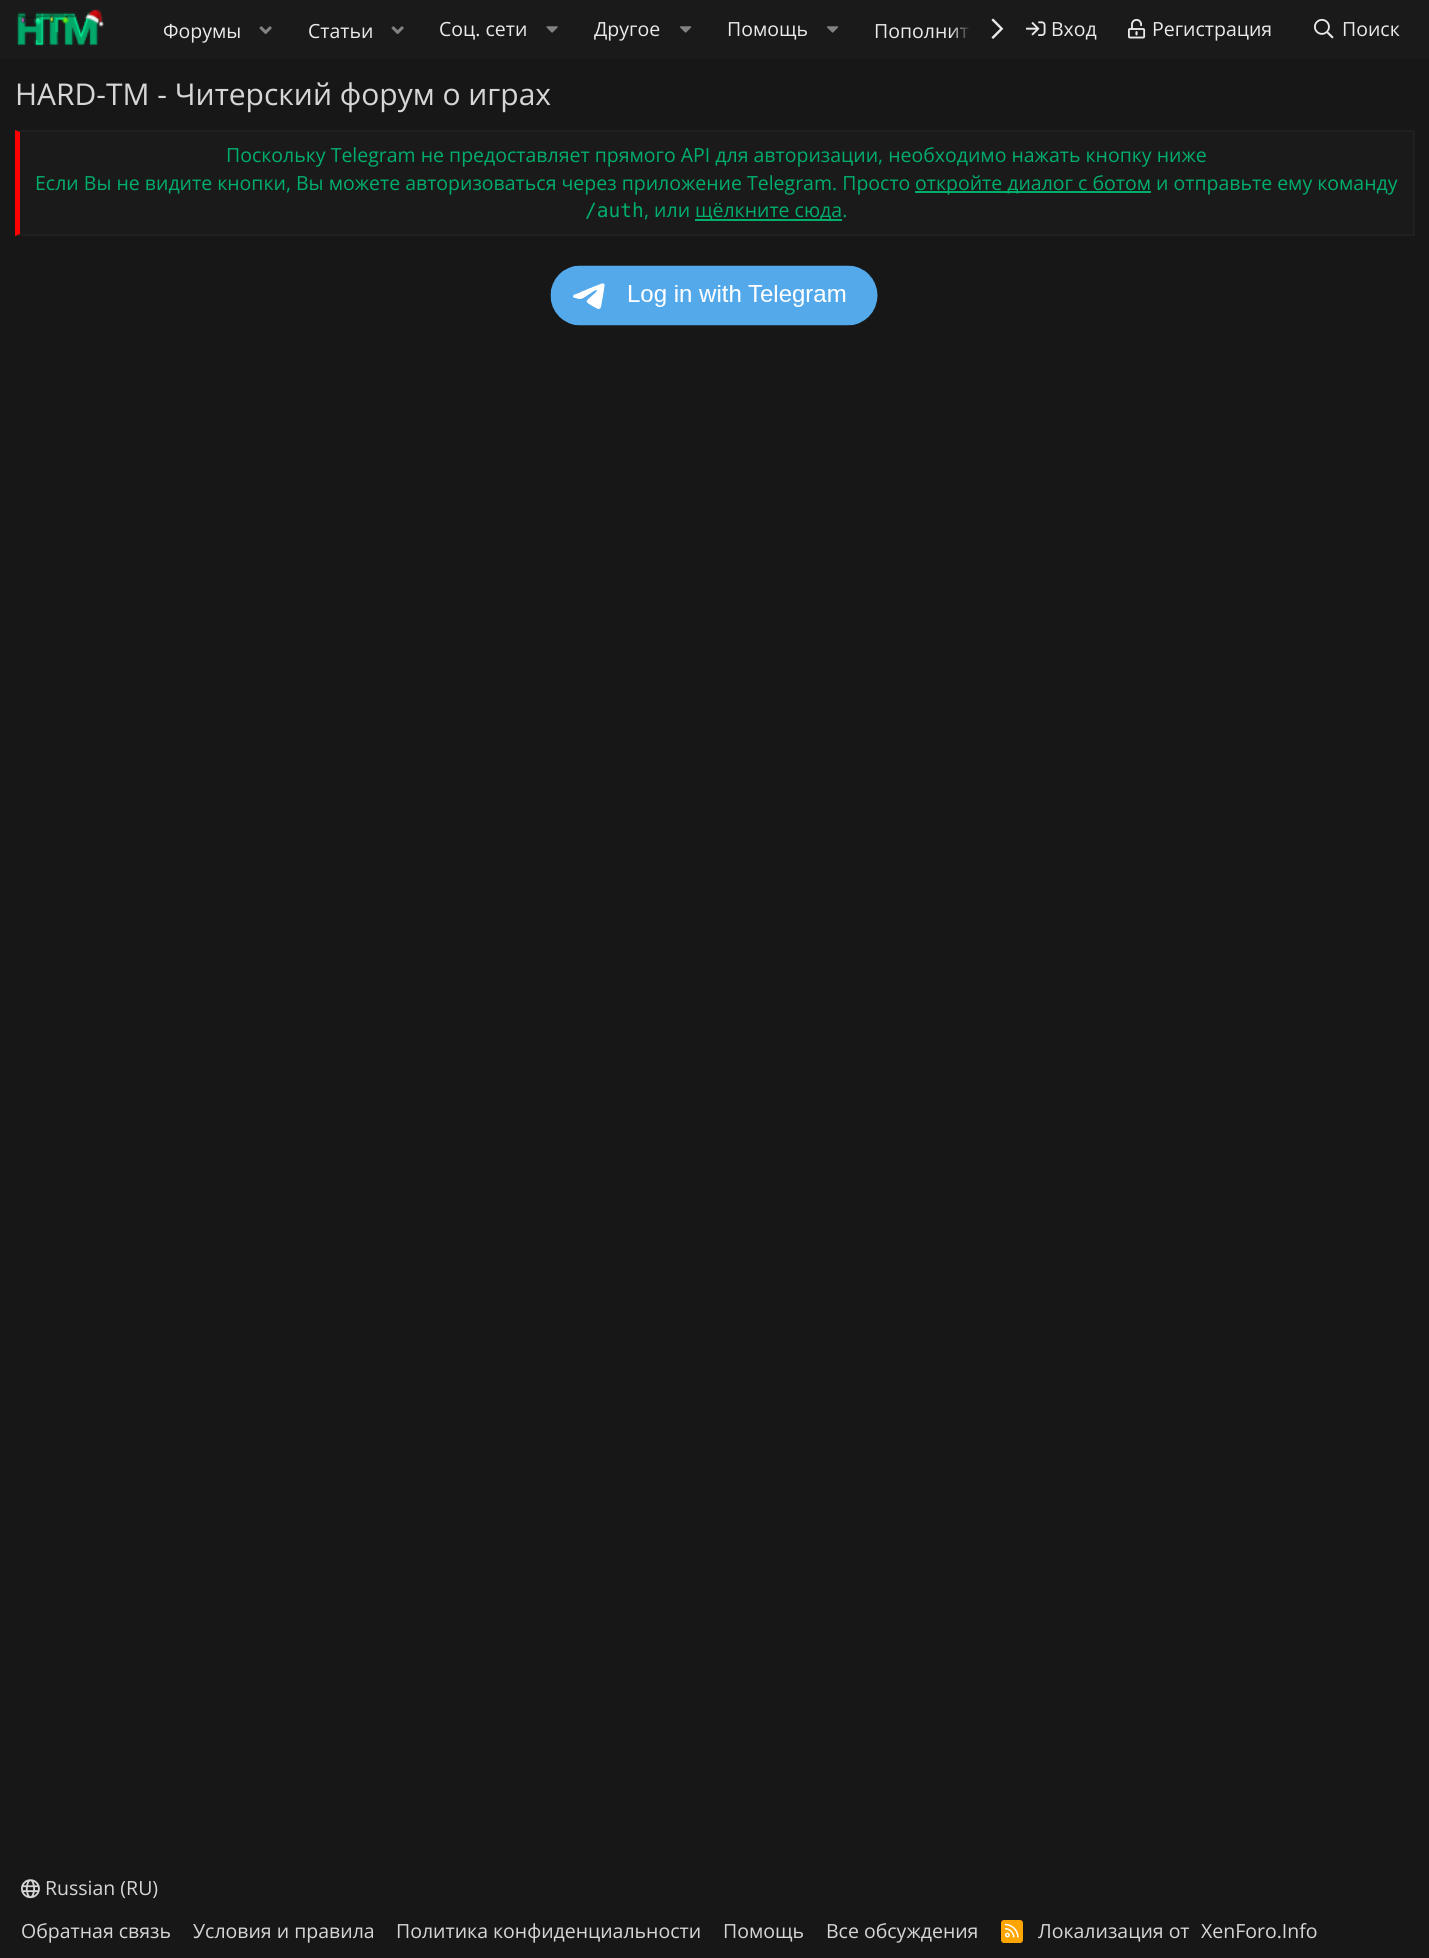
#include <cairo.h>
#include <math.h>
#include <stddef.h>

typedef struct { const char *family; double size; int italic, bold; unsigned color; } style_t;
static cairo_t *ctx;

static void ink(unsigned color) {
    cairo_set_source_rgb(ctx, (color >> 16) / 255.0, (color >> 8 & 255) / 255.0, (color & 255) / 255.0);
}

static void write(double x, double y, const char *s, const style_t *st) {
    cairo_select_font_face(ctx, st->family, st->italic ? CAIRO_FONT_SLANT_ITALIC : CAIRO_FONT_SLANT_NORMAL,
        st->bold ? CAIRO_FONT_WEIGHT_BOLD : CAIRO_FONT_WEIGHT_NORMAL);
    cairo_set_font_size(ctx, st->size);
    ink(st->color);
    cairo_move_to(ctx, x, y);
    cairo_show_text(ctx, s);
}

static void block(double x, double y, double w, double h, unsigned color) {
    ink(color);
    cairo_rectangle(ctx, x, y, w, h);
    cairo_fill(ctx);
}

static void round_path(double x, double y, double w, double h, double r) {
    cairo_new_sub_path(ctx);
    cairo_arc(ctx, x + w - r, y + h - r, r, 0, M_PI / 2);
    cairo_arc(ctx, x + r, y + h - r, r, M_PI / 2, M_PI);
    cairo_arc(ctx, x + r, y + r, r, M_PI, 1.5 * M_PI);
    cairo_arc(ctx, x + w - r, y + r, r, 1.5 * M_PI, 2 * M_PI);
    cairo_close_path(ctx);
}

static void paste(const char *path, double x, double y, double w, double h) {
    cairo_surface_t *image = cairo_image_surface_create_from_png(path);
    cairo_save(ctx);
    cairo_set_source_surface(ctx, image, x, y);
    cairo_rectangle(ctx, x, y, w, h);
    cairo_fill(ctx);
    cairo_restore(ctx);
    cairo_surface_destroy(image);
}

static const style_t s1 = {"Open Sans", 19.5, 0, 0, 0xeaeaea};
static const style_t s2 = {"Open Sans", 30, 0, 0, 0xd6d6d6};
static const style_t s3 = {"Open Sans", 19.5, 0, 0, 0x00ae6c};
static const style_t s4 = {"DejaVu Sans Mono", 19.5, 0, 0, 0x00ae6c};
static const style_t s5 = {"Open Sans", 19.5, 0, 0, 0xd6d6d6};

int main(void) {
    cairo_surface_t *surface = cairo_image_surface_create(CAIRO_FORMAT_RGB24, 1429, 1958);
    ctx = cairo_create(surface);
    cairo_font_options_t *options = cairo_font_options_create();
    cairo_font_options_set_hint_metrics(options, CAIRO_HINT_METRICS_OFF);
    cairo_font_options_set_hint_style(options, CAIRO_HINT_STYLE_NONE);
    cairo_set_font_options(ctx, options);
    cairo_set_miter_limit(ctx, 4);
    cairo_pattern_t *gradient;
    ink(0x171717);
    cairo_paint(ctx);
    block(0, 0, 1429, 59, 0x1a1a1a);
    paste("pic1.png", 15, 9, 89, 37);
    write(163, 38, "Форумы", &s1);
    paste("pic2.png", 259, 26, 13, 8);
    write(308, 38, "Статьи", &s1);
    paste("pic2.png", 391, 26, 13, 8);
    write(439, 36, "Соц. сети", &s1);
    paste("pic3.png", 546, 26, 12, 7);
    write(594, 36, "Другое", &s1);
    paste("pic4.png", 680, 26, 12, 7);
    write(727, 36, "Помощь", &s1);
    paste("pic4.png", 827, 26, 12, 7);
    write(874, 38, "Пополнит", &s1);
    gradient = cairo_pattern_create_linear(951, 29, 1011, 29);
    cairo_pattern_add_color_stop_rgba(gradient, 0, 0.102, 0.102, 0.102, 0);
    cairo_pattern_add_color_stop_rgba(gradient, 0.33, 0.102, 0.102, 0.102, 1);
    cairo_set_source(ctx, gradient);
    cairo_pattern_destroy(gradient);
    cairo_rectangle(ctx, 951, 27, 18, 11);
    cairo_fill(ctx);
    paste("pic5.png", 991, 18, 13, 21);
    paste("pic6.png", 1026, 21, 20, 15);
    write(1051, 36, "Вход", &s1);
    paste("pic7.png", 1128, 18, 18, 21);
    write(1152, 36, "Регистрация", &s1);
    paste("pic8.png", 1314, 18, 20, 21);
    write(1342, 36, "Поиск", &s1);
    write(15, 105, "HARD-TM - Читерский форум о играх", &s2);
    block(20, 132, 1393, 102, 0x1a1a1a);
    ink(0x202020);
    cairo_new_path(ctx);
    cairo_move_to(ctx, 15, 130);
    cairo_line_to(ctx, 1414, 130);
    cairo_line_to(ctx, 1413, 132);
    cairo_line_to(ctx, 20, 132);
    cairo_close_path(ctx);
    cairo_fill(ctx);
    block(1413, 131, 2, 105, 0x202020);
    cairo_new_path(ctx);
    cairo_move_to(ctx, 1414, 236);
    cairo_line_to(ctx, 15, 236);
    cairo_line_to(ctx, 20, 234);
    cairo_line_to(ctx, 1413, 234);
    cairo_close_path(ctx);
    cairo_fill(ctx);
    ink(0xff0000);
    cairo_new_path(ctx);
    cairo_move_to(ctx, 15, 236);
    cairo_line_to(ctx, 15, 130);
    cairo_line_to(ctx, 20, 132);
    cairo_line_to(ctx, 20, 234);
    cairo_close_path(ctx);
    cairo_fill(ctx);
    write(226, 162, "Поскольку Telegram не предоставляет прямого API для авторизации, необходимо нажать кнопку ниже", &s3);
    write(35, 190, "Если Вы не видите кнопки, Вы можете авторизоваться через приложение Telegram. Просто", &s3);
    block(915, 191, 236, 2, 0x00ae6c);
    write(915, 190, "откройте диалог с ботом и отправьте ему команду", &s3);
    write(585, 217, "/auth", &s4);
    write(644, 217, ", или", &s3);
    block(695, 219, 147, 2, 0x00ae6c);
    write(695, 217, "щёлкните сюда.", &s3);
    paste("pic9.png", 550, 265, 328, 61);
    paste("pic10.png", 21, 1879, 19, 20);
    write(45, 1895, "Russian (RU)", &s5);
    write(21, 1938, "Обратная связь", &s5);
    write(193, 1938, "Условия и правила", &s5);
    write(396, 1938, "Политика конфиденциальности", &s5);
    write(723, 1938, "Помощь", &s5);
    write(826, 1938, "Все обсуждения", &s5);
    ink(0xffa500);
    round_path(1001, 1920, 22, 23, 3);
    cairo_fill(ctx);
    paste("pic11.png", 1005, 1923, 14, 15);
    write(1038, 1938, "Локализация от", &s5);
    write(1201, 1938, "XenForo.Info", &s5);
    cairo_surface_write_to_png(surface, "screenshot.png");
    cairo_font_options_destroy(options);
    cairo_destroy(ctx);
    cairo_surface_destroy(surface);
    return 0;
}
